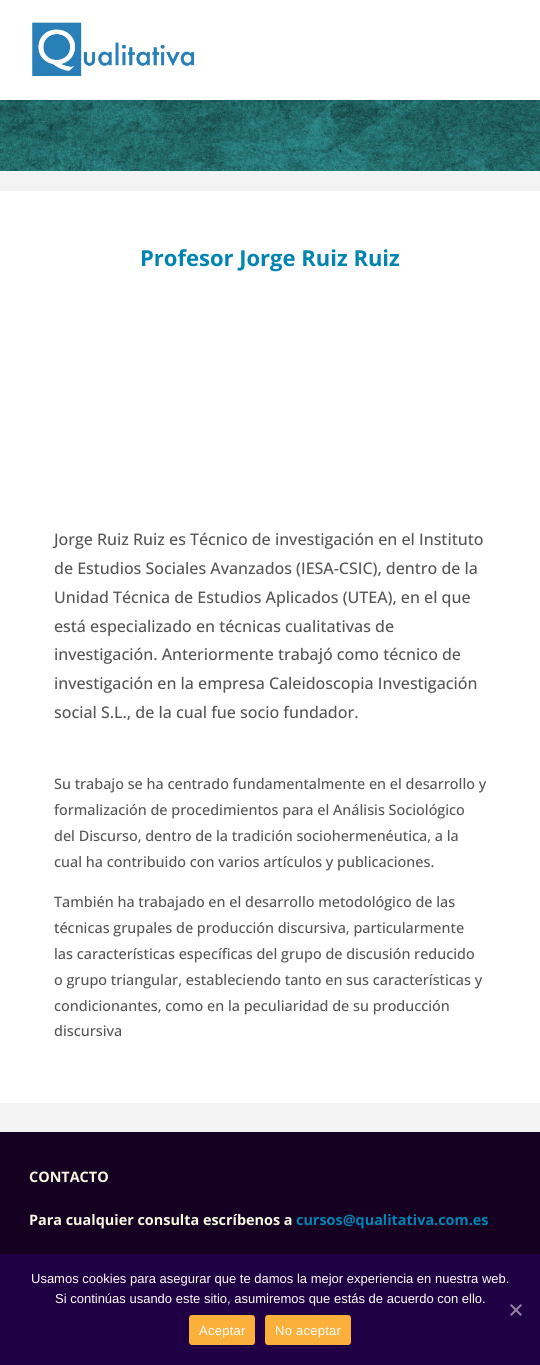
#include <cairo.h>
#include <math.h>
#include <stddef.h>

typedef struct { const char *family; double size; int italic, bold; unsigned color; } style_t;
static cairo_t *ctx;

static void ink(unsigned color) {
    cairo_set_source_rgb(ctx, (color >> 16) / 255.0, (color >> 8 & 255) / 255.0, (color & 255) / 255.0);
}

static void write(double x, double y, const char *s, const style_t *st) {
    cairo_select_font_face(ctx, st->family, st->italic ? CAIRO_FONT_SLANT_ITALIC : CAIRO_FONT_SLANT_NORMAL,
        st->bold ? CAIRO_FONT_WEIGHT_BOLD : CAIRO_FONT_WEIGHT_NORMAL);
    cairo_set_font_size(ctx, st->size);
    ink(st->color);
    cairo_move_to(ctx, x, y);
    cairo_show_text(ctx, s);
}

static void write_spaced(double x, double y, const char *s, double letter, double word) {
    cairo_move_to(ctx, x, y);
    while (*s) {
        char ch[5] = {0};
        int n = 0;
        do ch[n++] = *s++; while ((*s & 0xC0) == 0x80);
        cairo_show_text(ctx, ch);
        cairo_rel_move_to(ctx, letter + word * (*ch == ' '), 0);
    }
}

static void block(double x, double y, double w, double h, unsigned color) {
    ink(color);
    cairo_rectangle(ctx, x, y, w, h);
    cairo_fill(ctx);
}

static void round_path(double x, double y, double w, double h, double r) {
    cairo_new_sub_path(ctx);
    cairo_arc(ctx, x + w - r, y + h - r, r, 0, M_PI / 2);
    cairo_arc(ctx, x + r, y + h - r, r, M_PI / 2, M_PI);
    cairo_arc(ctx, x + r, y + r, r, M_PI, 1.5 * M_PI);
    cairo_arc(ctx, x + w - r, y + r, r, 1.5 * M_PI, 2 * M_PI);
    cairo_close_path(ctx);
}

static void blur_box(double x, double y, double w, double h, double r, double blur, double alpha) {
    cairo_push_group_with_content(ctx, CAIRO_CONTENT_ALPHA);
    cairo_set_operator(ctx, CAIRO_OPERATOR_SOURCE);
    for (int i = 15; i >= -15 && fmin(w, h) + blur * i / 3 > 0; i -= 2) {
        double e = blur * i / 6;
        cairo_set_source_rgba(ctx, 0, 0, 0, alpha * erfc((i - 1) / 8.5) / 2);
        round_path(x - e, y - e, w + 2 * e, h + 2 * e, fmax(0, fmin(r + e + blur * .6, fmin(w, h) / 2 + e)));
        cairo_fill(ctx);
    }
    cairo_pattern_t *soft = cairo_pop_group(ctx);
    cairo_mask(ctx, soft);
    cairo_pattern_destroy(soft);
}

static void paste(const char *path, double x, double y, double w, double h) {
    cairo_surface_t *image = cairo_image_surface_create_from_png(path);
    cairo_save(ctx);
    cairo_set_source_surface(ctx, image, x, y);
    cairo_rectangle(ctx, x, y, w, h);
    cairo_fill(ctx);
    cairo_restore(ctx);
    cairo_surface_destroy(image);
}

static const style_t s1 = {"Open Sans", 22, 0, 1, 0x0085b2};
static const style_t s2 = {"Open Sans Medium", 16, 0, 0, 0x555555};
static const style_t s3 = {"Open Sans Medium", 14.4, 0, 0, 0x555555};
static const style_t s4 = {"Open Sans", 14.4, 0, 1, 0xf9f8e3};
static const style_t s5 = {"Open Sans", 14.4, 0, 1, 0x0085b2};
static const style_t s6 = {"Liberation Sans", 13, 0, 0, 0xffffff};

int main(void) {
    cairo_surface_t *surface = cairo_image_surface_create(CAIRO_FORMAT_RGB24, 540, 1365);
    ctx = cairo_create(surface);
    cairo_font_options_t *options = cairo_font_options_create();
    cairo_font_options_set_hint_metrics(options, CAIRO_HINT_METRICS_OFF);
    cairo_font_options_set_hint_style(options, CAIRO_HINT_STYLE_NONE);
    cairo_set_font_options(ctx, options);
    cairo_set_miter_limit(ctx, 4);
    ink(0xf3f3f3);
    cairo_paint(ctx);
    paste("pic2.png", 0, 100, 540, 71);
    ink(0x000000);
    blur_box(0, 0, 540, 100, 0, 1.5, 0.2);
    block(0, 0, 540, 100, 0xffffff);
    paste("pic1.png", 32, 22, 163, 54);
    block(0, 191, 540, 912, 0xffffff);
    write(140, 266, "Profesor Jorge Ruiz Ruiz", &s1);
    write(54, 545, "Jorge Ruiz Ruiz es Técnico de investigación en el Instituto", &s2);
    write(54, 574, "de Estudios Sociales Avanzados (IESA-CSIC), dentro de la", &s2);
    write(54, 603, "Unidad Técnica de Estudios Aplicados (UTEA), en el que", &s2);
    write(54, 632, "está especializado en técnicas cualitativas de", &s2);
    write(54, 660, "investigación. Anteriormente trabajó como técnico de", &s2);
    write(54, 689, "investigación en la empresa Caleidoscopia Investigación", &s2);
    write(54, 718, "social S.L., de la cual fue socio fundador.", &s2);
    write(54, 789, "Su trabajo se ha centrado fundamentalmente en el desarrollo y", &s3);
    write(54, 815, "formalización de procedimientos para el Análisis Sociológico", &s3);
    write(54, 841, "del Discurso, dentro de la tradición sociohermenéutica, a la", &s3);
    write(54, 867, "cual ha contribuido con varios artículos y publicaciones.", &s3);
    write(54, 907, "También ha trabajado en el desarrollo metodológico de las", &s3);
    write(54, 933, "técnicas grupales de producción discursiva, particularmente", &s3);
    write(54, 959, "las características específicas del grupo de discusión reducido", &s3);
    write(54, 985, "o grupo triangular, estableciendo tanto en sus características y", &s3);
    write(54, 1011, "condicionantes, como en la peculiaridad de su producción", &s3);
    write(54, 1036, "discursiva", &s3);
    block(0, 1132, 540, 122, 0x150021);
    write(29, 1182, "CONTACTO", &s4);
    write(29, 1225, "Para cualquier consulta escríbenos a", &s4);
    write(296, 1225, "cursos@qualitativa.com.es", &s5);
    block(0, 1254, 540, 111, 0x200044);
    write(31, 1283, "Usamos cookies para asegurar que te damos la mejor experiencia en nuestra web.", &s6);
    write(55, 1303, "Si continúas usando este sitio, asumiremos que estás de acuerdo con ello.", &s6);
    ink(0x9080a2);
    cairo_new_path(ctx);
    cairo_move_to(ctx, 520.5, 1304);
    cairo_line_to(ctx, 522, 1305.5);
    cairo_line_to(ctx, 511.5, 1316);
    cairo_line_to(ctx, 510, 1314.5);
    cairo_close_path(ctx);
    cairo_fill(ctx);
    cairo_new_path(ctx);
    cairo_move_to(ctx, 510, 1305.5);
    cairo_line_to(ctx, 511.5, 1304);
    cairo_line_to(ctx, 522, 1314.5);
    cairo_line_to(ctx, 520.5, 1316);
    cairo_close_path(ctx);
    cairo_fill(ctx);
    ink(0xfbb03b);
    round_path(189, 1315, 66, 30, 3);
    cairo_fill(ctx);
    ink(0xffffff);
    write_spaced(199, 1335, "Aceptar", 0.25, 0);
    ink(0xfbb03b);
    round_path(265, 1315, 86, 30, 3);
    cairo_fill(ctx);
    ink(0xffffff);
    write_spaced(275, 1335, "No aceptar", 0.25, 0);
    cairo_surface_write_to_png(surface, "screenshot.png");
    cairo_font_options_destroy(options);
    cairo_destroy(ctx);
    cairo_surface_destroy(surface);
    return 0;
}
